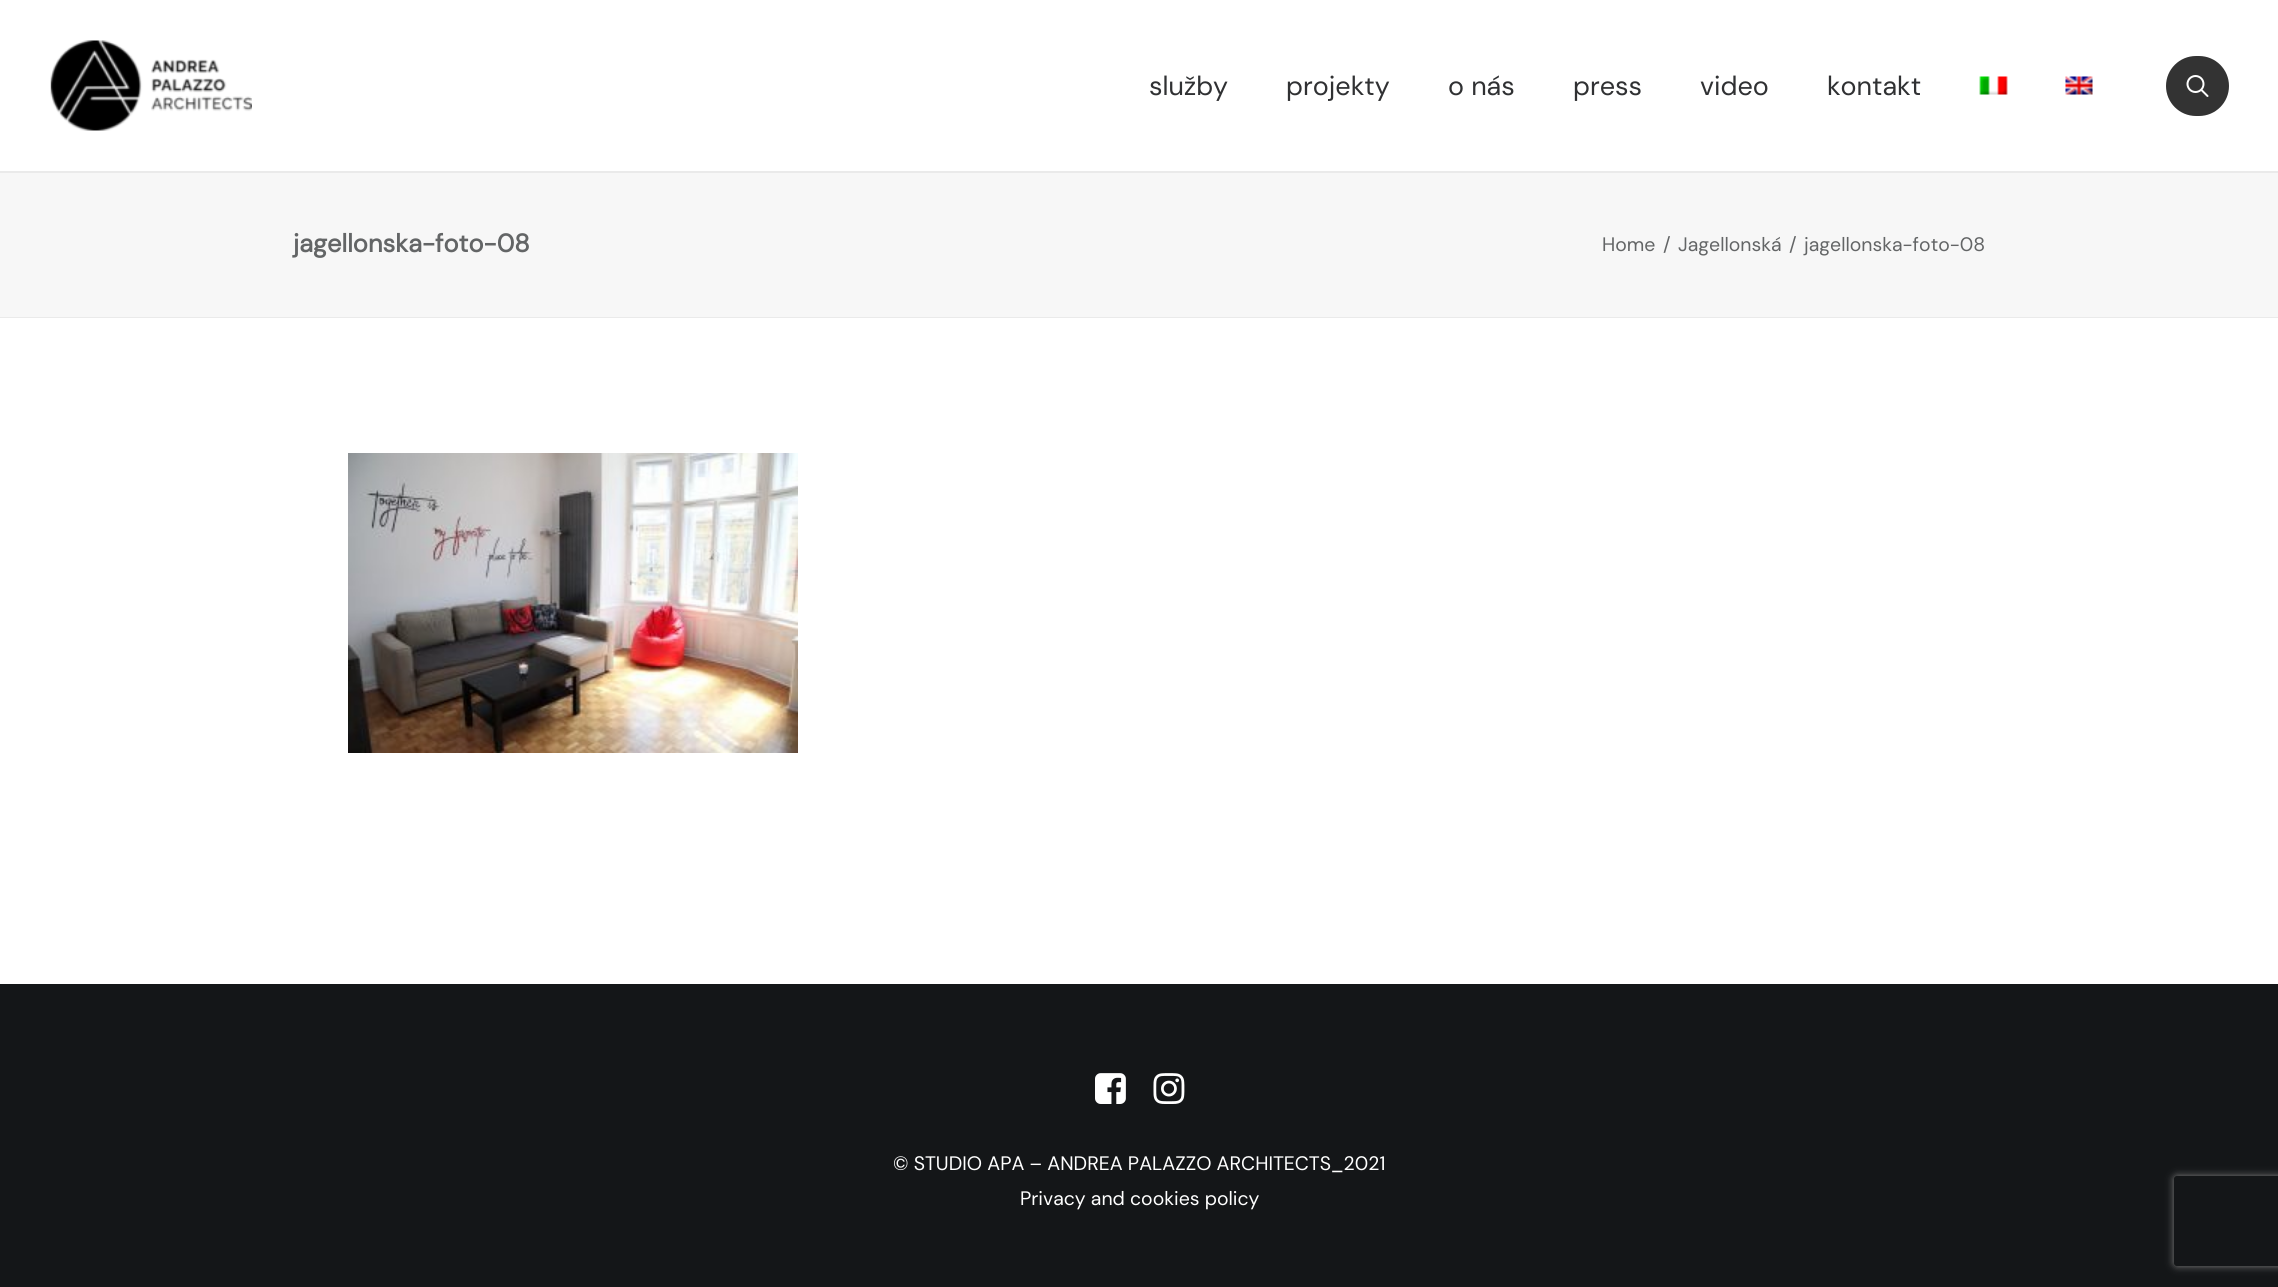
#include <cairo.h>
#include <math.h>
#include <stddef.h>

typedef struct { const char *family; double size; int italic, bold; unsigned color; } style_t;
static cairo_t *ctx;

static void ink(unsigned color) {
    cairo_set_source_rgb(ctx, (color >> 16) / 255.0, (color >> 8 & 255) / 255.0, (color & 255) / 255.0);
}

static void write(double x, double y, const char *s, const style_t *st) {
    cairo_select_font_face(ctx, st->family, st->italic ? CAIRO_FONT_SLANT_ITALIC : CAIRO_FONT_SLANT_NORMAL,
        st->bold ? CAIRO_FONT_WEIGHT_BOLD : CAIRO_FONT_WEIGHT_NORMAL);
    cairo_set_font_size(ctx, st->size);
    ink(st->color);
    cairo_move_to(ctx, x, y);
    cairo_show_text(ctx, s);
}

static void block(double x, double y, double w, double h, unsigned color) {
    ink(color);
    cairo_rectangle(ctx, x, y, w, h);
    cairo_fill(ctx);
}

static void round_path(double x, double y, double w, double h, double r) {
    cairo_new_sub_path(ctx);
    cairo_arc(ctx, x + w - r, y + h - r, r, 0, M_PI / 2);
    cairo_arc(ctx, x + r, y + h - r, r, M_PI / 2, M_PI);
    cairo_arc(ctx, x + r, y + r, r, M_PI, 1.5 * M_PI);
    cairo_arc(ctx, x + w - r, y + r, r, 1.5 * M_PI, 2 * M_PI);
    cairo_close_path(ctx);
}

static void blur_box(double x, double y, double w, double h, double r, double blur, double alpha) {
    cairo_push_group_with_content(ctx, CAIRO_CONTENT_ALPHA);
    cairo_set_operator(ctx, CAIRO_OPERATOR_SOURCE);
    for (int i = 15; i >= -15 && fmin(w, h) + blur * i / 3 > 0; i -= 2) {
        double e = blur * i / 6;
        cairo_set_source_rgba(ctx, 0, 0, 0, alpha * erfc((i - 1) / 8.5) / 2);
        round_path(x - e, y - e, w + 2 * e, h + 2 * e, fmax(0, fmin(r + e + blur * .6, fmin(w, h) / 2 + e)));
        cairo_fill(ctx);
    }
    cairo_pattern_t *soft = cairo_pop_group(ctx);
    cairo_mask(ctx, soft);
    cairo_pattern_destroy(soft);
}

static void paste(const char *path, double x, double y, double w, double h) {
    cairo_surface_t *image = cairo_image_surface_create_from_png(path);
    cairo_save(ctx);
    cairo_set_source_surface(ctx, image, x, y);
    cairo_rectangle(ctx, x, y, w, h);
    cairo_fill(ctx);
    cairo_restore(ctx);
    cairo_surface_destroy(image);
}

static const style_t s1 = {"DM Sans", 27, 0, 0, 0x303133};
static const style_t s2 = {"DM Sans", 25.5, 0, 1, 0x636566};
static const style_t s3 = {"DM Sans", 19.5, 0, 0, 0x636566};
static const style_t s4 = {"DM Sans", 19.5, 0, 0, 0xffffff};

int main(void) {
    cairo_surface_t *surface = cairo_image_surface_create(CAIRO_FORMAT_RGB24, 2278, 1287);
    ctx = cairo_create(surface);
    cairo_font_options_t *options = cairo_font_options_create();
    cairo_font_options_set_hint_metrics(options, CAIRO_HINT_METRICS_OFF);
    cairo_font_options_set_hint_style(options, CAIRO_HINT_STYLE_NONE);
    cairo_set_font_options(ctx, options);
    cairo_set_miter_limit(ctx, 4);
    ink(0x141618);
    cairo_paint(ctx);
    block(0, 0, 2278, 171, 0xffffff);
    paste("pic1.png", 50, 40, 202, 91);
    write(1149, 95, "služby", &s1);
    write(1286, 95, "projekty", &s1);
    write(1448, 95, "o nás", &s1);
    write(1573, 95, "press", &s1);
    write(1700, 95, "video", &s1);
    write(1827, 95, "kontakt", &s1);
    paste("pic2.png", 1979, 76, 29, 19);
    paste("pic3.png", 2065, 76, 28, 19);
    ink(0x333333);
    round_path(2166, 56, 63, 60, 30);
    cairo_fill(ctx);
    paste("pic4.png", 2186, 75, 23, 22);
    block(0, 173, 2278, 144, 0xf7f7f7);
    block(0, 171, 2278, 2, 0xeaeaea);
    block(0, 317, 2278, 1, 0xeaeaea);
    write(293, 252, "jagellonska-foto-08", &s2);
    write(1602, 251, "Home", &s3);
    write(1663, 251, "/", &s3);
    write(1678, 251, "Jagellonská", &s3);
    write(1789, 251, "/", &s3);
    write(1804, 251, "jagellonska-foto-08", &s3);
    block(0, 318, 2278, 666, 0xffffff);
    paste("pic5.png", 348, 453, 450, 300);
    paste("pic6.png", 1095, 1073, 31, 31);
    paste("pic7.png", 1153, 1073, 32, 31);
    write(893, 1170, "© STUDIO APA – ANDREA PALAZZO ARCHITECTS_2021", &s4);
    write(1020, 1205, "Privacy and cookies policy", &s4);
    cairo_save(ctx);
    cairo_set_fill_rule(ctx, CAIRO_FILL_RULE_EVEN_ODD);
    cairo_new_path(ctx);
    cairo_move_to(ctx, 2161, 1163);
    cairo_line_to(ctx, 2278, 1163);
    cairo_line_to(ctx, 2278, 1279);
    cairo_line_to(ctx, 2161, 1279);
    cairo_close_path(ctx);
    cairo_move_to(ctx, 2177, 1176);
    cairo_line_to(ctx, 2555, 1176);
    cairo_curve_to(ctx, 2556.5, 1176, 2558, 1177.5, 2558, 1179);
    cairo_line_to(ctx, 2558, 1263);
    cairo_curve_to(ctx, 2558, 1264.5, 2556.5, 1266, 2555, 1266);
    cairo_line_to(ctx, 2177, 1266);
    cairo_curve_to(ctx, 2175.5, 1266, 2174, 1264.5, 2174, 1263);
    cairo_line_to(ctx, 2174, 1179);
    cairo_curve_to(ctx, 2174, 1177.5, 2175.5, 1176, 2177, 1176);
    cairo_close_path(ctx);
    cairo_clip(ctx);
    ink(0x808080);
    blur_box(2174, 1176, 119, 90, 3, 4, 1);
    cairo_restore(ctx);
    cairo_surface_write_to_png(surface, "screenshot.png");
    cairo_font_options_destroy(options);
    cairo_destroy(ctx);
    cairo_surface_destroy(surface);
    return 0;
}
